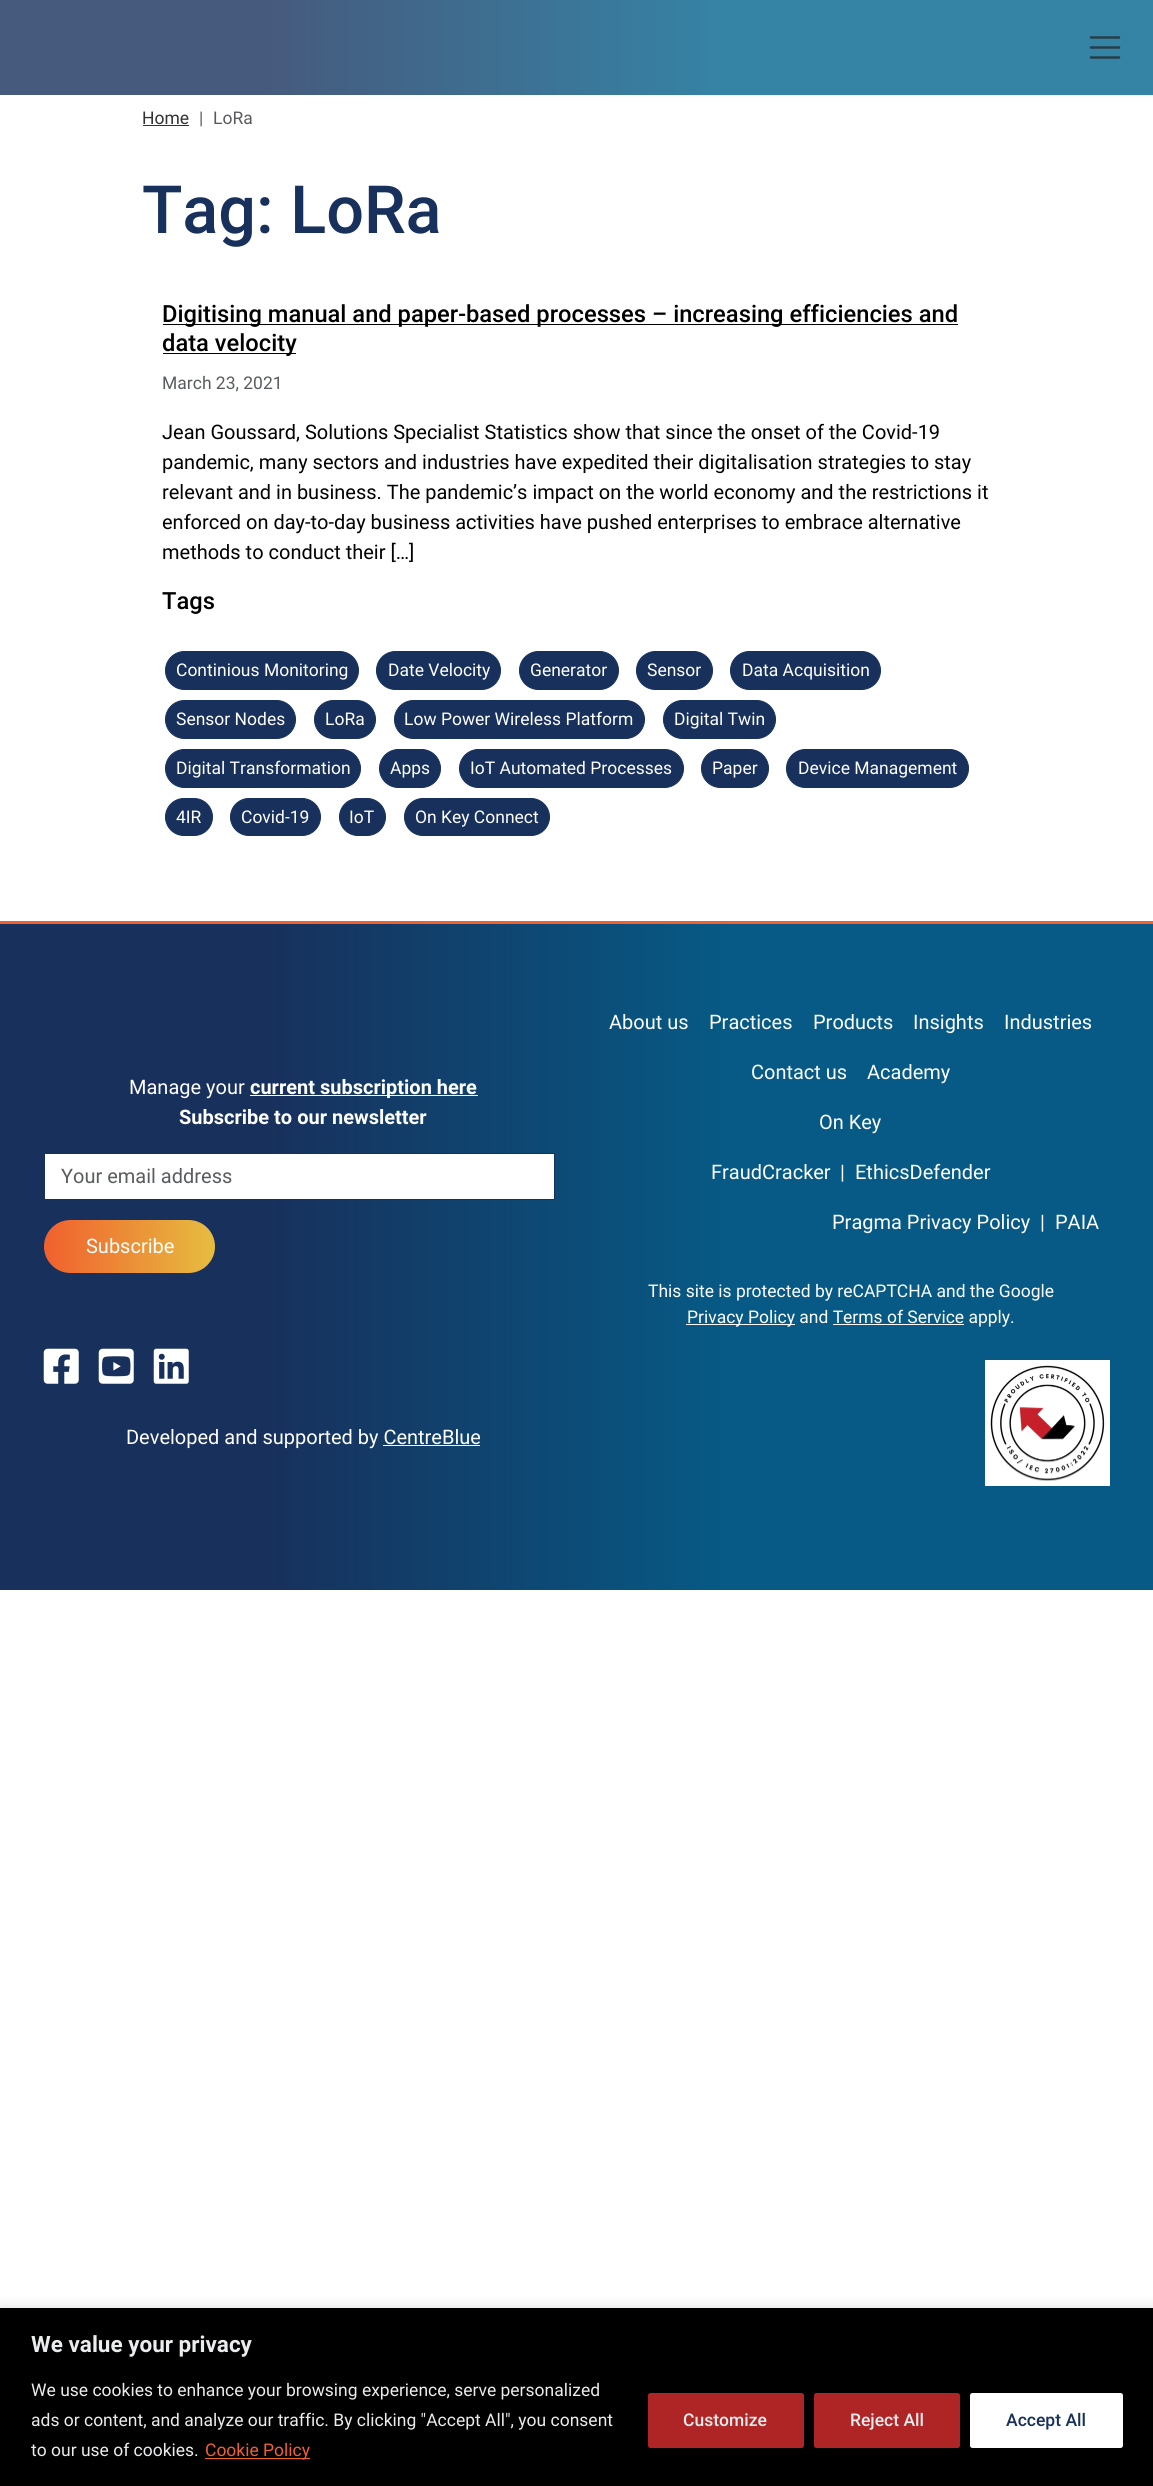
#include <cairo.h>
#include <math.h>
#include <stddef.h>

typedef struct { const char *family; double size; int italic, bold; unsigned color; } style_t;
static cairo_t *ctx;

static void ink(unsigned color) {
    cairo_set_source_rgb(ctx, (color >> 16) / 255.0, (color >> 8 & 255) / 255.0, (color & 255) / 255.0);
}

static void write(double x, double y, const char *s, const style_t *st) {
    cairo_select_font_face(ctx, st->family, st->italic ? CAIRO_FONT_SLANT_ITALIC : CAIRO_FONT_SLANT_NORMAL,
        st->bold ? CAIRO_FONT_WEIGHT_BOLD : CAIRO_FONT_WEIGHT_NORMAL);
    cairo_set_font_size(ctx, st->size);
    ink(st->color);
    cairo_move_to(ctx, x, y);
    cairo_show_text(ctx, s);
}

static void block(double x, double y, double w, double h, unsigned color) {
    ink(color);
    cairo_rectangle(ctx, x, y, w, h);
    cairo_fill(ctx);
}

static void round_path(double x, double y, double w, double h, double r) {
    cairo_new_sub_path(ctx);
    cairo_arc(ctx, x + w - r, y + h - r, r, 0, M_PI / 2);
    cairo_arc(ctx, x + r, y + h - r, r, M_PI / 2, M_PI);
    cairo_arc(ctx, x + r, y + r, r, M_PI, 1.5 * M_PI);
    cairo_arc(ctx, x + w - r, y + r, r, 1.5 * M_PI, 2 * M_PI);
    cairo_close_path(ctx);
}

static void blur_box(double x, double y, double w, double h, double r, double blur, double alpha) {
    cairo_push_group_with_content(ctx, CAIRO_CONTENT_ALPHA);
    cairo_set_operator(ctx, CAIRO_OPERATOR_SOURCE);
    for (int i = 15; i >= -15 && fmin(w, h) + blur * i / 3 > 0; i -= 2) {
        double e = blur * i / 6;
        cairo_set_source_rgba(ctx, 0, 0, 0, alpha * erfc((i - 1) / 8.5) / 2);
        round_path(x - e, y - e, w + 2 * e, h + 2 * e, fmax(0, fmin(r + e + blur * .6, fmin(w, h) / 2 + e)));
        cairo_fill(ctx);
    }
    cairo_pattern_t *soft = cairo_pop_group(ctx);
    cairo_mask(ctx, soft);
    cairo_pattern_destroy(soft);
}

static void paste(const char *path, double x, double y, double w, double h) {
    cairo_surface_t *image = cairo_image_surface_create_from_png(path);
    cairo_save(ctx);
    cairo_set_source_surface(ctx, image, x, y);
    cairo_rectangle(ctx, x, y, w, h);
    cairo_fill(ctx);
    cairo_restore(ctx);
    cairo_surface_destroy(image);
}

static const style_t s1 = {"Roboto", 17.5, 0, 0, 0x323232};
static const style_t s2 = {"Roboto", 17.5, 0, 0, 0x595c5f};
static const style_t s3 = {"Roboto Medium", 66.5, 0, 0, 0x18305c};
static const style_t s4 = {"Roboto Medium", 23.7, 0, 0, 0x000000};
static const style_t s5 = {"Roboto", 20, 0, 0, 0x000000};
static const style_t s6 = {"Roboto", 17.5, 0, 0, 0xffffff};
static const style_t s7 = {"Roboto", 20, 0, 0, 0xffffff};
static const style_t s8 = {"Roboto", 20, 0, 1, 0xffffff};
static const style_t s9 = {"Roboto", 20, 0, 0, 0x595c5f};
static const style_t s10 = {"Roboto", 22.5, 0, 1, 0xebeced};
static const style_t s11 = {"Roboto", 17.5, 0, 0, 0xebeced};
static const style_t s12 = {"Roboto", 17.5, 0, 0, 0xf1602e};
static const style_t s13 = {"Roboto Medium", 17.5, 0, 0, 0xebeced};
static const style_t s14 = {"Roboto Medium", 17.5, 0, 0, 0x18305c};

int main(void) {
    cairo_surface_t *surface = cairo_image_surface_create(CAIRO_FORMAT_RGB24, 1153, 2486);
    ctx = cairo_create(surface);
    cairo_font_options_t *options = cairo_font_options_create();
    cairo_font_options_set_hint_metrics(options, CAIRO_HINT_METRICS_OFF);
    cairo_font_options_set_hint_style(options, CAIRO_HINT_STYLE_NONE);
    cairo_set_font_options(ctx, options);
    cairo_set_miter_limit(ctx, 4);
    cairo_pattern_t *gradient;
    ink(0xffffff);
    cairo_paint(ctx);
    gradient = cairo_pattern_create_linear(0, 71, 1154, 71);
    cairo_pattern_add_color_stop_rgba(gradient, 0, 0.275, 0.353, 0.49, 1);
    cairo_pattern_add_color_stop_rgba(gradient, 0.23, 0.275, 0.353, 0.49, 1);
    cairo_pattern_add_color_stop_rgba(gradient, 0.63, 0.208, 0.518, 0.651, 1);
    cairo_set_source(ctx, gradient);
    cairo_pattern_destroy(gradient);
    cairo_rectangle(ctx, 0, 0, 1153, 95);
    cairo_fill(ctx);
    cairo_new_path(ctx);
    cairo_move_to(ctx, 1091, 37.5);
    cairo_line_to(ctx, 1119, 37.5);
    cairo_move_to(ctx, 1091, 47.5);
    cairo_line_to(ctx, 1119, 47.5);
    cairo_move_to(ctx, 1091, 57.5);
    cairo_line_to(ctx, 1119, 57.5);
    ink(0x263d48);
    cairo_set_line_width(ctx, 2.5);
    cairo_set_line_cap(ctx, CAIRO_LINE_CAP_ROUND);
    cairo_stroke(ctx);
    write(142, 124, "Home", &s1);
    block(143, 125, 46, 1, 0x323232);
    write(199, 124, "|", &s2);
    write(213, 124, "LoRa", &s2);
    write(142, 233, "Tag: LoRa", &s3);
    block(163, 324, 795, 1, 0x000000);
    write(162, 322, "Digitising manual and paper-based processes – increasing efficiencies and", &s4);
    block(163, 353, 133, 1, 0x000000);
    write(162, 351, "data velocity", &s4);
    write(162, 389, "March 23, 2021", &s2);
    write(162, 439, "Jean Goussard, Solutions Specialist Statistics show that since the onset of the Covid-19", &s5);
    write(162, 469, "pandemic, many sectors and industries have expedited their digitalisation strategies to stay", &s5);
    write(162, 499, "relevant and in business. The pandemic’s impact on the world economy and the restrictions it", &s5);
    write(162, 529, "enforced on day-to-day business activities have pushed enterprises to embrace alternative", &s5);
    write(162, 559, "methods to conduct their […]", &s5);
    write(162, 609, "Tags", &s4);
    ink(0x18305c);
    round_path(165.5, 651.5, 193, 38, 19);
    cairo_fill_preserve(ctx);
    cairo_set_line_width(ctx, 1);
    cairo_set_line_cap(ctx, CAIRO_LINE_CAP_BUTT);
    cairo_stroke(ctx);
    write(176, 676, "Continious Monitoring", &s6);
    ink(0x18305c);
    round_path(376.5, 651.5, 124, 38, 19);
    cairo_fill_preserve(ctx);
    cairo_stroke(ctx);
    write(388, 676, "Date Velocity", &s6);
    ink(0x18305c);
    round_path(519.5, 651.5, 99, 38, 19);
    cairo_fill_preserve(ctx);
    cairo_stroke(ctx);
    write(530, 676, "Generator", &s6);
    ink(0x18305c);
    round_path(636.5, 651.5, 76, 38, 19);
    cairo_fill_preserve(ctx);
    cairo_stroke(ctx);
    write(647, 676, "Sensor", &s6);
    ink(0x18305c);
    round_path(730.5, 651.5, 150, 38, 19);
    cairo_fill_preserve(ctx);
    cairo_stroke(ctx);
    write(742, 676, "Data Acquisition", &s6);
    ink(0x18305c);
    round_path(165.5, 700.5, 130, 38, 19);
    cairo_fill_preserve(ctx);
    cairo_stroke(ctx);
    write(176, 725, "Sensor Nodes", &s6);
    ink(0x18305c);
    round_path(314.5, 700.5, 61, 38, 19);
    cairo_fill_preserve(ctx);
    cairo_stroke(ctx);
    write(325, 725, "LoRa", &s6);
    ink(0x18305c);
    round_path(394.5, 700.5, 250, 38, 19);
    cairo_fill_preserve(ctx);
    cairo_stroke(ctx);
    write(404, 725, "Low Power Wireless Platform", &s6);
    ink(0x18305c);
    round_path(663.5, 700.5, 112, 38, 19);
    cairo_fill_preserve(ctx);
    cairo_stroke(ctx);
    write(674, 725, "Digital Twin", &s6);
    ink(0x18305c);
    round_path(165.5, 749.5, 195, 38, 19);
    cairo_fill_preserve(ctx);
    cairo_stroke(ctx);
    write(176, 774, "Digital Transformation", &s6);
    ink(0x18305c);
    round_path(379.5, 749.5, 61, 38, 19);
    cairo_fill_preserve(ctx);
    cairo_stroke(ctx);
    write(390, 774, "Apps", &s6);
    ink(0x18305c);
    round_path(459.5, 749.5, 224, 38, 19);
    cairo_fill_preserve(ctx);
    cairo_stroke(ctx);
    write(470, 774, "IoT Automated Processes", &s6);
    ink(0x18305c);
    round_path(701.5, 749.5, 67, 38, 19);
    cairo_fill_preserve(ctx);
    cairo_stroke(ctx);
    write(712, 774, "Paper", &s6);
    ink(0x18305c);
    round_path(786.5, 749.5, 182, 38, 19);
    cairo_fill_preserve(ctx);
    cairo_stroke(ctx);
    write(798, 774, "Device Management", &s6);
    ink(0x18305c);
    round_path(165.5, 798.5, 47, 37, 18.5);
    cairo_fill_preserve(ctx);
    cairo_stroke(ctx);
    write(176, 823, "4IR", &s6);
    ink(0x18305c);
    round_path(230.5, 798.5, 90, 37, 18.5);
    cairo_fill_preserve(ctx);
    cairo_stroke(ctx);
    write(241, 823, "Covid-19", &s6);
    ink(0x18305c);
    round_path(339.5, 798.5, 46, 37, 18.5);
    cairo_fill_preserve(ctx);
    cairo_stroke(ctx);
    write(349, 823, "IoT", &s6);
    ink(0x18305c);
    round_path(404.5, 798.5, 145, 37, 18.5);
    cairo_fill_preserve(ctx);
    cairo_stroke(ctx);
    write(415, 823, "On Key Connect", &s6);
    gradient = cairo_pattern_create_linear(0, 1257, 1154, 1257);
    cairo_pattern_add_color_stop_rgba(gradient, 0, 0.094, 0.188, 0.361, 1);
    cairo_pattern_add_color_stop_rgba(gradient, 0.23, 0.094, 0.188, 0.361, 1);
    cairo_pattern_add_color_stop_rgba(gradient, 0.63, 0.024, 0.353, 0.522, 1);
    cairo_set_source(ctx, gradient);
    cairo_pattern_destroy(gradient);
    cairo_rectangle(ctx, 0, 924, 1153, 666);
    cairo_fill(ctx);
    block(0, 921, 1153, 3, 0xf1602e);
    write(129, 1094, "Manage your", &s7);
    block(250, 1095, 228, 1, 0xffffff);
    write(250, 1094, "current subscription here", &s8);
    write(179, 1124, "Subscribe to our newsletter", &s8);
    cairo_rectangle(ctx, 44.5, 1153.5, 510, 46);
    cairo_fill_preserve(ctx);
    ink(0x18305c);
    cairo_stroke(ctx);
    write(61, 1183, "Your email address", &s9);
    gradient = cairo_pattern_create_linear(44, 1246, 215, 1246);
    cairo_pattern_add_color_stop_rgba(gradient, 0, 0.945, 0.376, 0.18, 1);
    cairo_pattern_add_color_stop_rgba(gradient, 1, 0.902, 0.741, 0.251, 1);
    cairo_set_source(ctx, gradient);
    cairo_pattern_destroy(gradient);
    round_path(44, 1220, 171, 53, 26.5);
    cairo_fill(ctx);
    write(86, 1253, "Subscribe", &s7);
    paste("pic1.png", 43, 1348, 36, 36);
    paste("pic2.png", 98, 1348, 36, 36);
    paste("pic3.png", 153, 1348, 36, 36);
    write(126, 1444, "Developed and supported by CentreBlue", &s7);
    block(383, 1445, 97, 1, 0xffffff);
    write(609, 1029, "About us", &s7);
    write(709, 1029, "Practices", &s7);
    write(813, 1029, "Products", &s7);
    write(913, 1029, "Insights", &s7);
    write(1004, 1029, "Industries", &s7);
    write(751, 1079, "Contact us", &s7);
    write(867, 1079, "Academy", &s7);
    write(819, 1129, "On Key", &s7);
    write(711, 1179, "FraudCracker", &s7);
    write(840, 1179, "|", &s7);
    write(855, 1179, "EthicsDefender", &s7);
    write(832, 1229, "Pragma Privacy Policy", &s7);
    write(1040, 1229, "|", &s7);
    write(1055, 1229, "PAIA", &s7);
    write(648, 1297, "This site is protected by reCAPTCHA and the Google", &s6);
    block(686, 1324, 109, 1, 0xffffff);
    write(687, 1323, "Privacy Policy and Terms of Service apply.", &s6);
    block(833, 1324, 131, 1, 0xffffff);
    block(985, 1360, 125, 126, 0xffffff);
    paste("pic4.png", 990, 1365, 115, 116);
    ink(0xacabab);
    blur_box(0, 2306, 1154, 179, 0, 6, 0.3);
    block(0, 2308, 1153, 178, 0x000000);
    write(31, 2352, "We value your privacy", &s10);
    write(31, 2396, "We use cookies to enhance your browsing experience, serve personalized", &s11);
    write(31, 2426, "ads or content, and analyze our traffic. By clicking \"Accept All\", you consent", &s11);
    write(31, 2456, "to our use of cookies.", &s11);
    block(205, 2458, 105, 1, 0xf1602e);
    write(205, 2456, "Cookie Policy", &s12);
    ink(0xaf2526);
    round_path(649.5, 2394.5, 153, 52, 1);
    cairo_fill_preserve(ctx);
    cairo_set_line_width(ctx, 3);
    cairo_stroke(ctx);
    write(683, 2426, "Customize", &s13);
    ink(0xaf2526);
    round_path(815.5, 2394.5, 143, 52, 1);
    cairo_fill_preserve(ctx);
    cairo_stroke(ctx);
    write(850, 2426, "Reject All", &s13);
    ink(0xffffff);
    round_path(971.5, 2394.5, 150, 52, 1);
    cairo_fill_preserve(ctx);
    cairo_stroke(ctx);
    write(1006, 2426, "Accept All", &s14);
    cairo_surface_write_to_png(surface, "screenshot.png");
    cairo_font_options_destroy(options);
    cairo_destroy(ctx);
    cairo_surface_destroy(surface);
    return 0;
}
